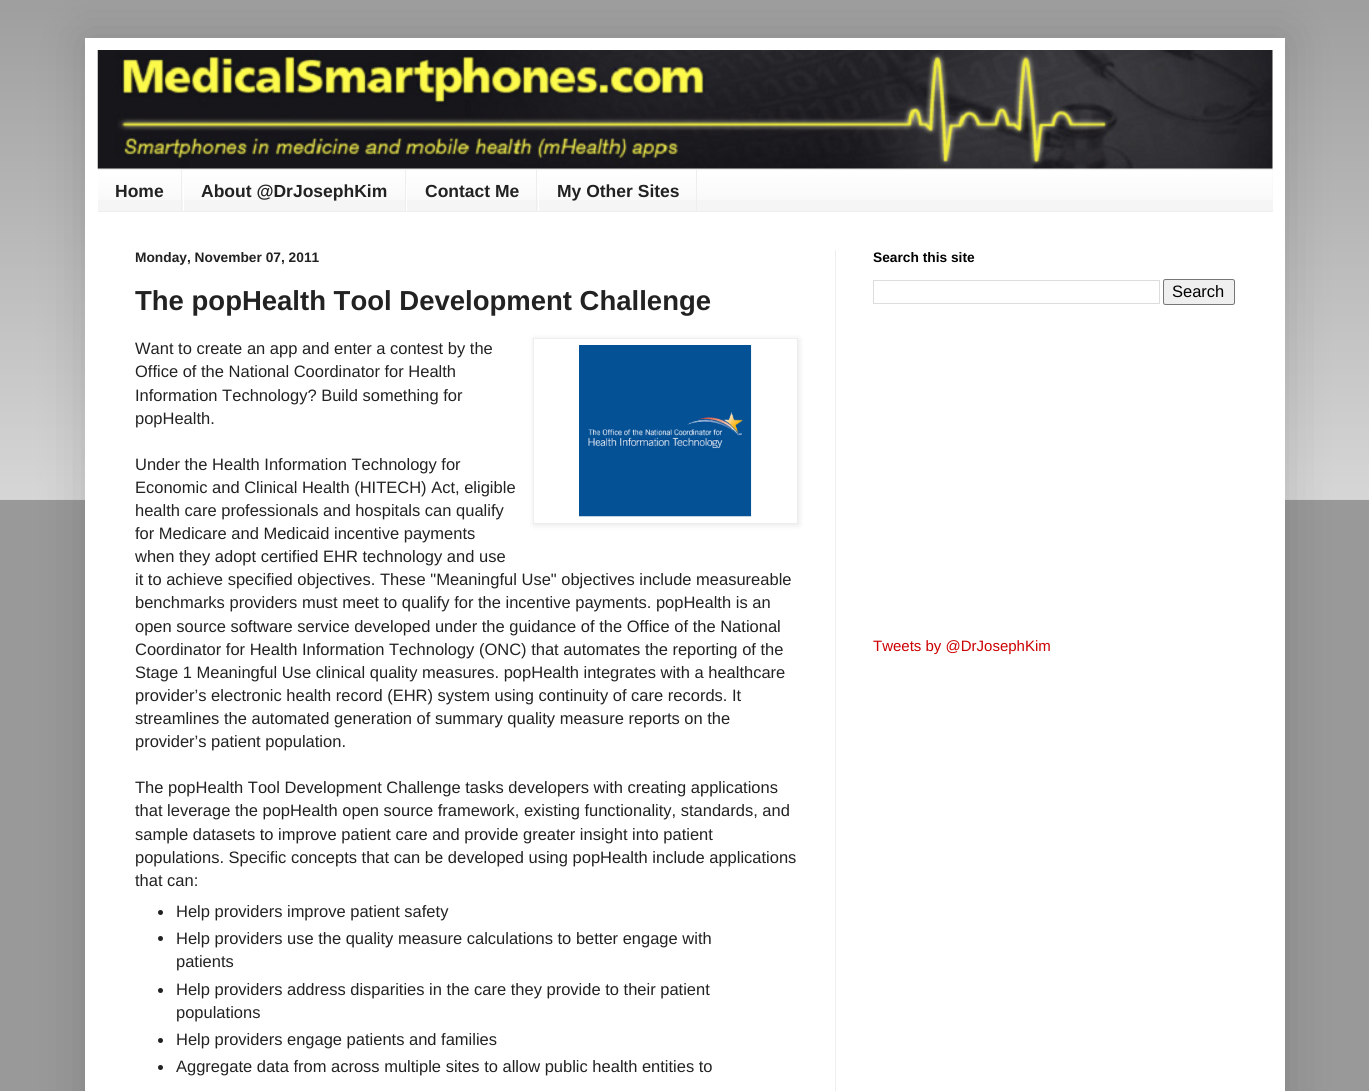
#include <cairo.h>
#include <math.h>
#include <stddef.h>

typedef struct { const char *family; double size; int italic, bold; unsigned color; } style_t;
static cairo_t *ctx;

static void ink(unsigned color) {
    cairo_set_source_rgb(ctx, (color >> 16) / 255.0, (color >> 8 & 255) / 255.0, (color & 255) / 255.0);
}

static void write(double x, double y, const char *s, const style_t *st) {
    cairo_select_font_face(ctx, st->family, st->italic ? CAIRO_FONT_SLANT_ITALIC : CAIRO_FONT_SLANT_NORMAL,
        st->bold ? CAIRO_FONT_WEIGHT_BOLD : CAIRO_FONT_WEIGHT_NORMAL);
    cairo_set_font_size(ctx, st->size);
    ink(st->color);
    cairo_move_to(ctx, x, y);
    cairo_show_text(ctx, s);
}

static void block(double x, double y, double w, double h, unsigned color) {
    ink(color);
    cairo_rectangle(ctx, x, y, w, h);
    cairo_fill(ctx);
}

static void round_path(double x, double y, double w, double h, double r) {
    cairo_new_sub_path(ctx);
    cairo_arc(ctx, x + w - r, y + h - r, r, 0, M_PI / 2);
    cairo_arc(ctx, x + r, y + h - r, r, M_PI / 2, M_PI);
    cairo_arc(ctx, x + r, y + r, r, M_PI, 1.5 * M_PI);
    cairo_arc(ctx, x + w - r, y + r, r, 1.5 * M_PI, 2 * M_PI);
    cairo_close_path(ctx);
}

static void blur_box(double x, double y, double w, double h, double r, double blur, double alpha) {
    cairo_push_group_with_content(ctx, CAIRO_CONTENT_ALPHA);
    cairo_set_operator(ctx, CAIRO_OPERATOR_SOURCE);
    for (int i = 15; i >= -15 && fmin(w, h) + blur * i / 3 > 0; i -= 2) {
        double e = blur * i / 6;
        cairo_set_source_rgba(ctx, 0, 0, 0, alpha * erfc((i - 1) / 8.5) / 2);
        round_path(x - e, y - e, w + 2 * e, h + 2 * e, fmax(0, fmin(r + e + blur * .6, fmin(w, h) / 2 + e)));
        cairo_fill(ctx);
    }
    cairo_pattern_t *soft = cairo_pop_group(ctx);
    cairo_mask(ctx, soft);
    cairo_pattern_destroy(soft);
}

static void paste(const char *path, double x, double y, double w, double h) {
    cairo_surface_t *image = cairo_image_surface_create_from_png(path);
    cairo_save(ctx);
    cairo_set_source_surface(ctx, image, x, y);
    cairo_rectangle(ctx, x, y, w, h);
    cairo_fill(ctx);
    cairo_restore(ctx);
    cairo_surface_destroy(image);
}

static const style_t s1 = {"Liberation Sans", 17.5, 0, 1, 0x222222};
static const style_t s2 = {"Liberation Sans", 13.75, 0, 1, 0x222222};
static const style_t s3 = {"Liberation Sans", 27.5, 0, 1, 0x222222};
static const style_t s4 = {"Liberation Sans", 16.5, 0, 0, 0x222222};
static const style_t s5 = {"Liberation Sans", 13.75, 0, 1, 0x000000};
static const style_t s6 = {"Liberation Sans", 16.5, 0, 0, 0x000000};
static const style_t s7 = {"Liberation Sans", 15, 0, 0, 0xcc0000};

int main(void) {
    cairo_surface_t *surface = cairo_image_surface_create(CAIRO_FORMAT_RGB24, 1369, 1091);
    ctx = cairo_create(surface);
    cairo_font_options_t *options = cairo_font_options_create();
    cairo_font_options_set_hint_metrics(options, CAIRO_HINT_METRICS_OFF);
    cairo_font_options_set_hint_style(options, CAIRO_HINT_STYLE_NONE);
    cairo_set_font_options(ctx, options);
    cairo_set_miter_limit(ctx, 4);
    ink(0x999999);
    cairo_paint(ctx);
    paste("pic1.png", 0, 0, 1369, 500);
    ink(0x000000);
    blur_box(85, 38, 1200, 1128, 0, 25, 0.15);
    block(85, 38, 1200, 1053, 0xffffff);
    paste("pic2.png", 97, 50, 1176, 119);
    block(98, 170, 1175, 41, 0xf5f5f5);
    paste("pic3.png", 98, 170, 1175, 30);
    block(98, 169, 1175, 1, 0xeeeeee);
    block(98, 211, 1175, 1, 0xeeeeee);
    block(181, 170, 1, 41, 0xeeeeee);
    write(115, 197, "Home", &s1);
    block(405, 170, 1, 41, 0xeeeeee);
    block(183, 184, 1, 27, 0xffffff);
    write(201, 197, "About @DrJosephKim", &s1);
    block(536, 170, 1, 41, 0xeeeeee);
    block(406, 184, 1, 27, 0xffffff);
    write(425, 197, "Contact Me", &s1);
    block(696, 170, 1, 41, 0xeeeeee);
    block(538, 184, 1, 27, 0xffffff);
    write(557, 197, "My Other Sites", &s1);
    block(835, 250, 1, 841, 0xeeeeee);
    write(135, 262, "Monday, November 07, 2011", &s2);
    write(135, 310, "The popHealth Tool Development Challenge", &s3);
    write(135, 354, "Want to create an app and enter a contest by the", &s4);
    ink(0x000000);
    blur_box(534, 339, 265, 186, 0, 3, 0.1);
    ink(0xffffff);
    cairo_rectangle(ctx, 533.5, 338.5, 264, 185);
    cairo_fill_preserve(ctx);
    ink(0xeeeeee);
    cairo_set_line_width(ctx, 1);
    cairo_stroke(ctx);
    paste("pic4.png", 579, 345, 173, 172);
    write(135, 377, "Office of the National Coordinator for Health", &s4);
    write(135, 401, "Information Technology? Build something for", &s4);
    write(135, 424, "popHealth.", &s4);
    write(135, 470, "Under the Health Information Technology for", &s4);
    write(135, 493, "Economic and Clinical Health (HITECH) Act, eligible", &s4);
    write(135, 516, "health care professionals and hospitals can qualify", &s4);
    write(135, 539, "for Medicare and Medicaid incentive payments", &s4);
    write(135, 562, "when they adopt certified EHR technology and use", &s4);
    write(135, 585, "it to achieve specified objectives. These \"Meaningful Use\" objectives include measureable", &s4);
    write(135, 608, "benchmarks providers must meet to qualify for the incentive payments. popHealth is an", &s4);
    write(135, 632, "open source software service developed under the guidance of the Office of the National", &s4);
    write(135, 655, "Coordinator for Health Information Technology (ONC) that automates the reporting of the", &s4);
    write(135, 678, "Stage 1 Meaningful Use clinical quality measures. popHealth integrates with a healthcare", &s4);
    write(135, 701, "provider’s electronic health record (EHR) system using continuity of care records. It", &s4);
    write(135, 724, "streamlines the automated generation of summary quality measure reports on the", &s4);
    write(135, 747, "provider’s patient population.", &s4);
    write(135, 793, "The popHealth Tool Development Challenge tasks developers with creating applications", &s4);
    write(135, 816, "that leverage the popHealth open source framework, existing functionality, standards, and", &s4);
    write(135, 840, "sample datasets to improve patient care and provide greater insight into patient", &s4);
    write(135, 863, "populations. Specific concepts that can be developed using popHealth include applications", &s4);
    write(135, 886, "that can:", &s4);
    cairo_new_path(ctx);
    cairo_arc(ctx, 160.5, 912.5, 2.5, 0, 2 * M_PI);
    cairo_fill(ctx);
    write(176, 917, "Help providers improve patient safety", &s4);
    cairo_new_path(ctx);
    cairo_arc(ctx, 160.5, 938.5, 2.5, 0, 2 * M_PI);
    cairo_fill(ctx);
    write(176, 944, "Help providers use the quality measure calculations to better engage with", &s4);
    write(176, 967, "patients", &s4);
    cairo_new_path(ctx);
    cairo_arc(ctx, 160.5, 990.5, 2.5, 0, 2 * M_PI);
    cairo_fill(ctx);
    write(176, 995, "Help providers address disparities in the care they provide to their patient", &s4);
    write(176, 1018, "populations", &s4);
    cairo_new_path(ctx);
    cairo_arc(ctx, 160.5, 1040.5, 2.5, 0, 2 * M_PI);
    cairo_fill(ctx);
    write(176, 1045, "Help providers engage patients and families", &s4);
    cairo_new_path(ctx);
    cairo_arc(ctx, 160.5, 1067.5, 2.5, 0, 2 * M_PI);
    cairo_fill(ctx);
    write(176, 1072, "Aggregate data from across multiple sites to allow public health entities to", &s4);
    write(873, 262, "Search this site", &s5);
    cairo_rectangle(ctx, 873.5, 280.5, 286, 23);
    ink(0xdddddd);
    cairo_stroke(ctx);
    ink(0xefefef);
    round_path(1163.5, 279.5, 71, 25, 2);
    cairo_fill_preserve(ctx);
    ink(0x767676);
    cairo_stroke(ctx);
    write(1172, 297, "Search", &s6);
    write(873, 651, "Tweets by @DrJosephKim", &s7);
    cairo_surface_write_to_png(surface, "screenshot.png");
    cairo_font_options_destroy(options);
    cairo_destroy(ctx);
    cairo_surface_destroy(surface);
    return 0;
}
